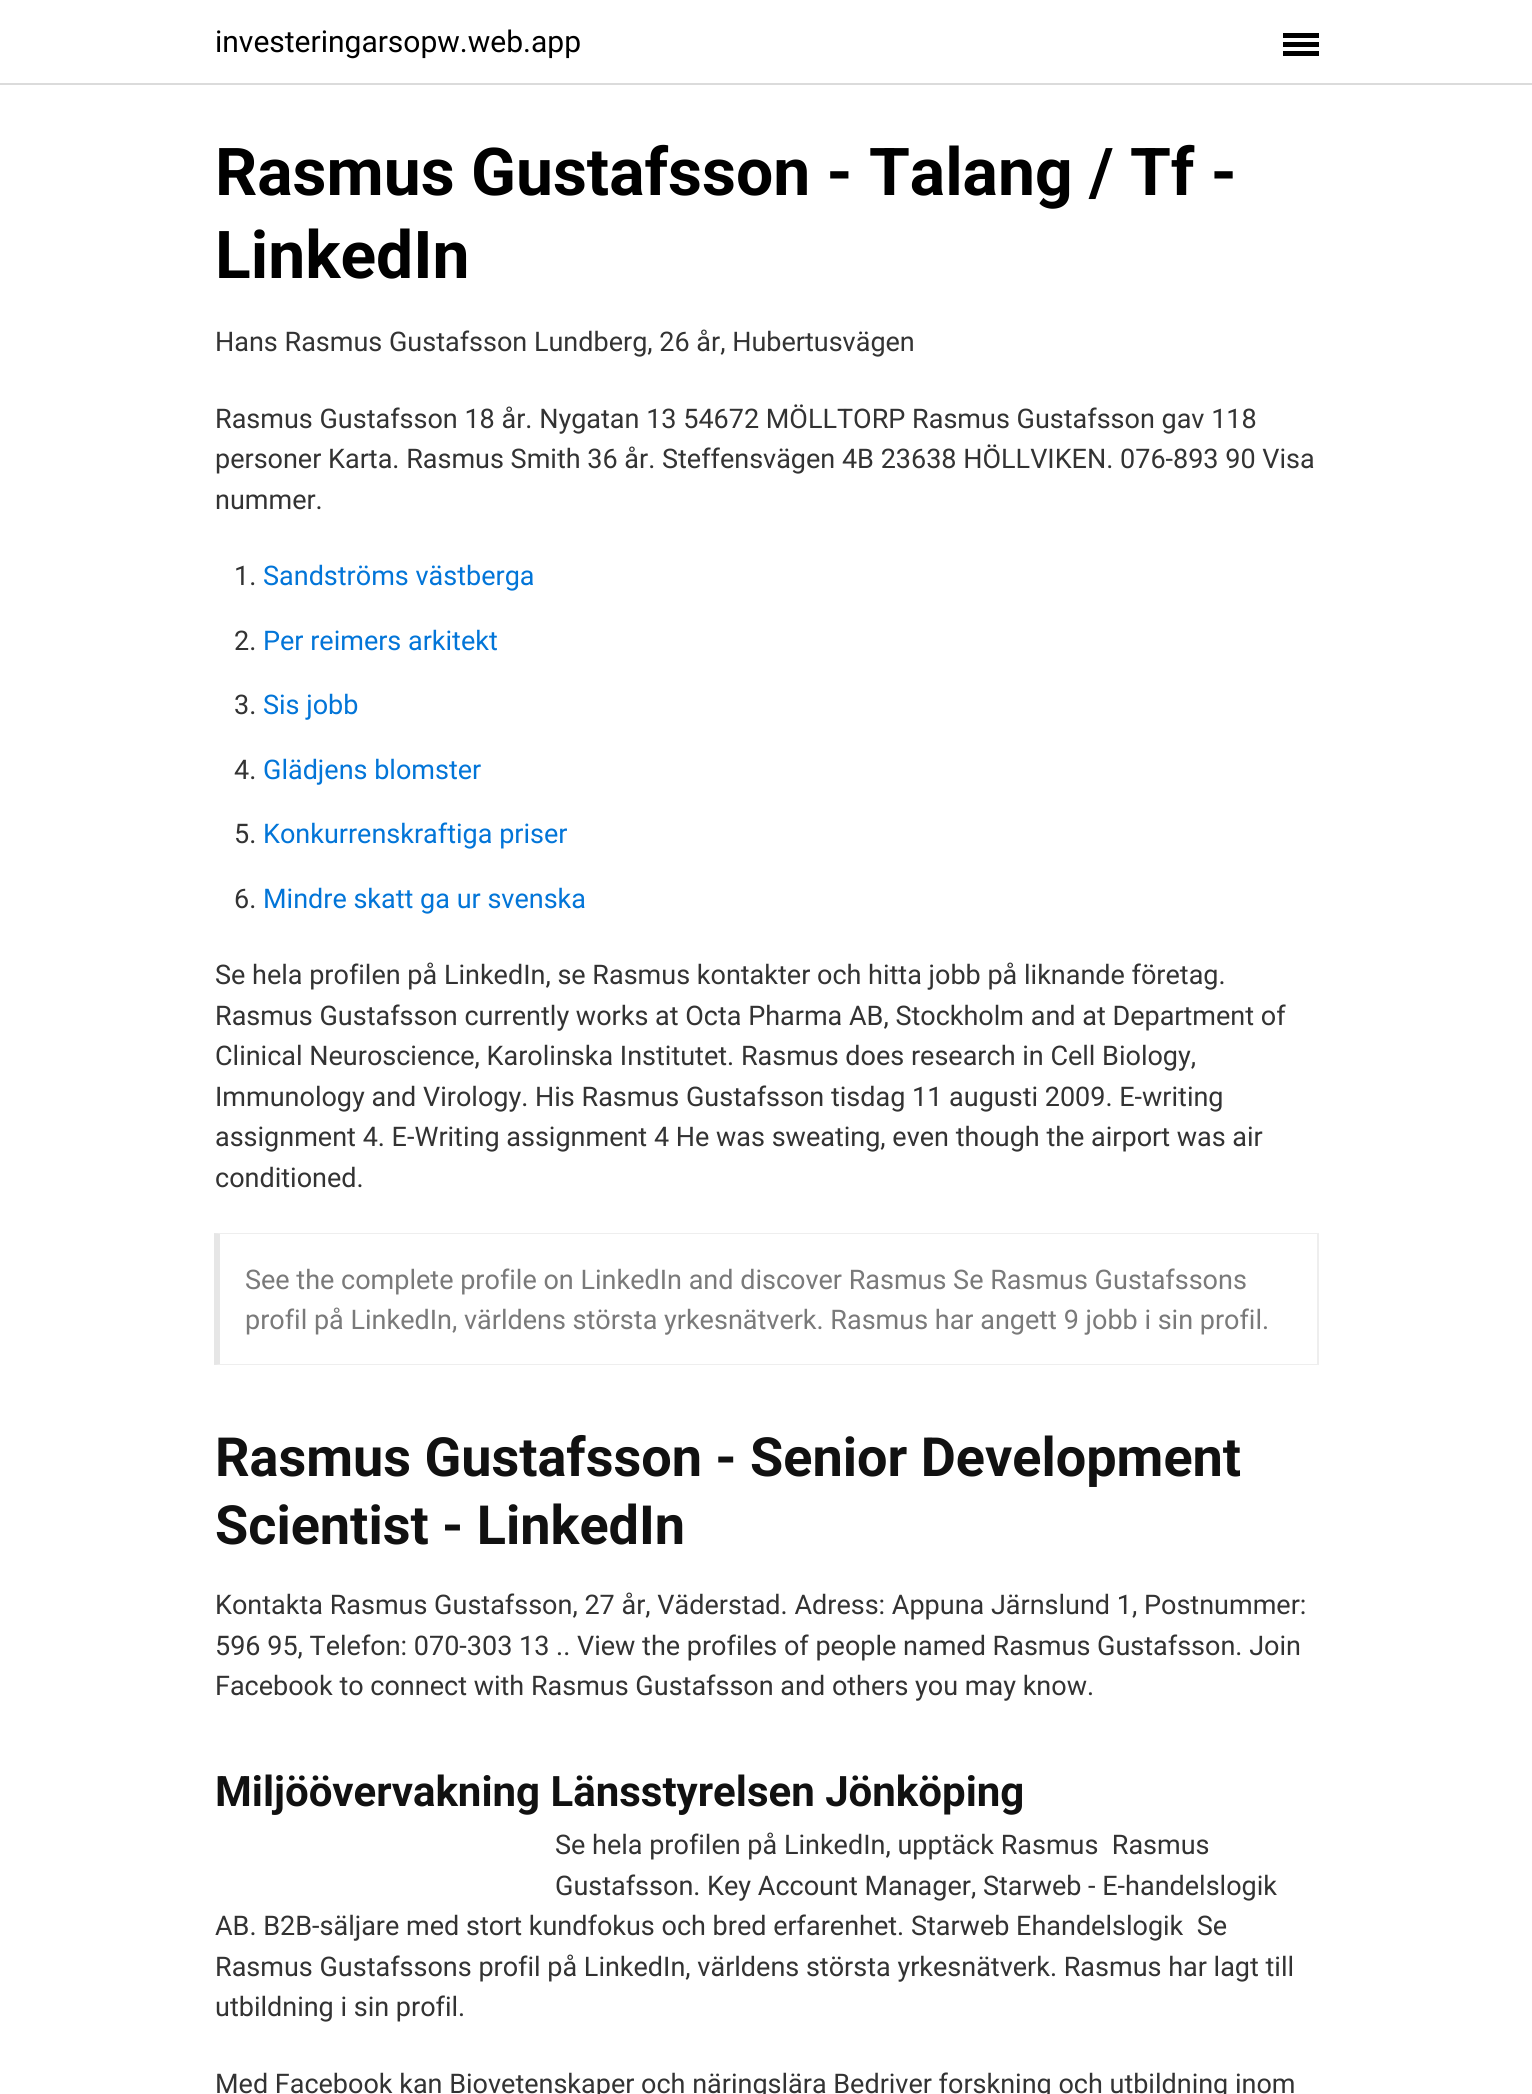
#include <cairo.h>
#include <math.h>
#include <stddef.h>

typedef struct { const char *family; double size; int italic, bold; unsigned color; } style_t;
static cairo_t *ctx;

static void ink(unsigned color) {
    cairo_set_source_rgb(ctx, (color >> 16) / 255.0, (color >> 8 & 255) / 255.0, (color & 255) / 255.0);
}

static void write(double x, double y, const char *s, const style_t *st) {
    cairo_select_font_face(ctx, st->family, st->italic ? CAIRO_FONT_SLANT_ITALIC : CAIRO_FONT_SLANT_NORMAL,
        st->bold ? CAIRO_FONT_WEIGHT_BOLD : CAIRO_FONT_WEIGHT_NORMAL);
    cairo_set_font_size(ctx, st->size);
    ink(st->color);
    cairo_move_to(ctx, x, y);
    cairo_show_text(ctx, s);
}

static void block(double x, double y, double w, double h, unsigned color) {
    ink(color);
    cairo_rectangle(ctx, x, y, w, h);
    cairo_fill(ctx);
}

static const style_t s1 = {"Roboto", 30, 0, 0, 0x000000};
static const style_t s2 = {"Roboto", 66, 0, 1, 0x000000};
static const style_t s3 = {"Roboto", 27, 0, 0, 0x333333};
static const style_t s4 = {"Roboto", 27, 0, 0, 0x0275d8};
static const style_t s5 = {"Roboto", 27, 0, 0, 0x7a7a7a};
static const style_t s6 = {"Roboto", 54, 0, 1, 0x111111};
static const style_t s7 = {"Roboto", 42, 0, 1, 0x111111};

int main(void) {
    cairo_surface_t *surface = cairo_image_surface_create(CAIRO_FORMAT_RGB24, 1532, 2094);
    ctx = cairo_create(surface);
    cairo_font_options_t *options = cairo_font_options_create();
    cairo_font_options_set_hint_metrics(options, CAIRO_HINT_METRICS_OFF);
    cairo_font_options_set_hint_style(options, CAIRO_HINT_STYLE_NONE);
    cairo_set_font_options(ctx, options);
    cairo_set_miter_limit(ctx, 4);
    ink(0xffffff);
    cairo_paint(ctx);
    block(0, 83, 1532, 2, 0xdbdbdb);
    write(215, 52, "investeringarsopw.web.app", &s1);
    block(1283, 42, 36, 5, 0x000000);
    block(1283, 33, 36, 5, 0x000000);
    block(1283, 51, 36, 5, 0x000000);
    write(215, 195, "Rasmus Gustafsson - Talang / Tf -", &s2);
    write(215, 278, "LinkedIn", &s2);
    write(215, 351, "Hans Rasmus Gustafsson Lundberg, 26 år, Hubertusvägen", &s3);
    write(215, 428, "Rasmus Gustafsson 18 år. Nygatan 13 54672 MÖLLTORP Rasmus Gustafsson gav 118", &s3);
    write(215, 468, "personer Karta. Rasmus Smith 36 år. Steffensvägen 4B 23638 HÖLLVIKEN. 076-893 90 Visa", &s3);
    write(215, 509, "nummer.", &s3);
    write(234, 585, "1.", &s3);
    write(263, 585, "Sandströms västberga", &s4);
    write(234, 650, "2.", &s3);
    write(263, 650, "Per reimers arkitekt", &s4);
    write(234, 714, "3.", &s3);
    write(263, 714, "Sis jobb", &s4);
    write(234, 779, "4.", &s3);
    write(263, 779, "Glädjens blomster", &s4);
    write(234, 843, "5.", &s3);
    write(263, 843, "Konkurrenskraftiga priser", &s4);
    write(234, 908, "6.", &s3);
    write(263, 908, "Mindre skatt ga ur svenska", &s4);
    write(215, 984, "Se hela profilen på LinkedIn, se Rasmus kontakter och hitta jobb på liknande företag.", &s3);
    write(215, 1025, "Rasmus Gustafsson currently works at Octa Pharma AB, Stockholm and at Department of", &s3);
    write(215, 1065, "Clinical Neuroscience, Karolinska Institutet. Rasmus does research in Cell Biology,", &s3);
    write(215, 1106, "Immunology and Virology. His Rasmus Gustafsson tisdag 11 augusti 2009. E-writing", &s3);
    write(215, 1146, "assignment 4. E-Writing assignment 4 He was sweating, even though the airport was air", &s3);
    write(215, 1187, "conditioned.", &s3);
    ink(0xeeeeee);
    cairo_new_path(ctx);
    cairo_move_to(ctx, 214, 1233);
    cairo_line_to(ctx, 1318, 1233);
    cairo_line_to(ctx, 1317, 1234);
    cairo_line_to(ctx, 220, 1234);
    cairo_close_path(ctx);
    cairo_fill(ctx);
    block(1317, 1233, 2, 132, 0xeeeeee);
    cairo_new_path(ctx);
    cairo_move_to(ctx, 1318, 1365);
    cairo_line_to(ctx, 214, 1365);
    cairo_line_to(ctx, 220, 1364);
    cairo_line_to(ctx, 1317, 1364);
    cairo_close_path(ctx);
    cairo_fill(ctx);
    cairo_set_source_rgba(ctx, 0, 0, 0, 0.1);
    cairo_new_path(ctx);
    cairo_move_to(ctx, 214, 1365);
    cairo_line_to(ctx, 214, 1233);
    cairo_line_to(ctx, 220, 1234);
    cairo_line_to(ctx, 220, 1364);
    cairo_close_path(ctx);
    cairo_fill(ctx);
    write(245, 1289, "See the complete profile on LinkedIn and discover Rasmus Se Rasmus Gustafssons", &s5);
    write(245, 1329, "profil på LinkedIn, världens största yrkesnätverk. Rasmus har angett 9 jobb i sin profil.", &s5);
    write(215, 1476, "Rasmus Gustafsson - Senior Development", &s6);
    write(215, 1544, "Scientist - LinkedIn", &s6);
    write(215, 1614, "Kontakta Rasmus Gustafsson, 27 år, Väderstad. Adress: Appuna Järnslund 1, Postnummer:", &s3);
    write(215, 1655, "596 95, Telefon: 070-303 13 .. View the profiles of people named Rasmus Gustafsson. Join", &s3);
    write(215, 1695, "Facebook to connect with Rasmus Gustafsson and others you may know.", &s3);
    write(215, 1806, "Miljöövervakning Länsstyrelsen Jönköping", &s7);
    write(555, 1854, "Se hela profilen på LinkedIn, upptäck Rasmus  Rasmus", &s3);
    write(555, 1895, "Gustafsson. Key Account Manager, Starweb - E-handelslogik", &s3);
    write(215, 1935, "AB. B2B-säljare med stort kundfokus och bred erfarenhet. Starweb Ehandelslogik  Se", &s3);
    write(215, 1976, "Rasmus Gustafssons profil på LinkedIn, världens största yrkesnätverk. Rasmus har lagt till", &s3);
    write(215, 2016, "utbildning i sin profil.", &s3);
    write(215, 2093, "Med Facebook kan Biovetenskaper och näringslära Bedriver forskning och utbildning inom", &s3);
    cairo_surface_write_to_png(surface, "screenshot.png");
    cairo_font_options_destroy(options);
    cairo_destroy(ctx);
    cairo_surface_destroy(surface);
    return 0;
}
